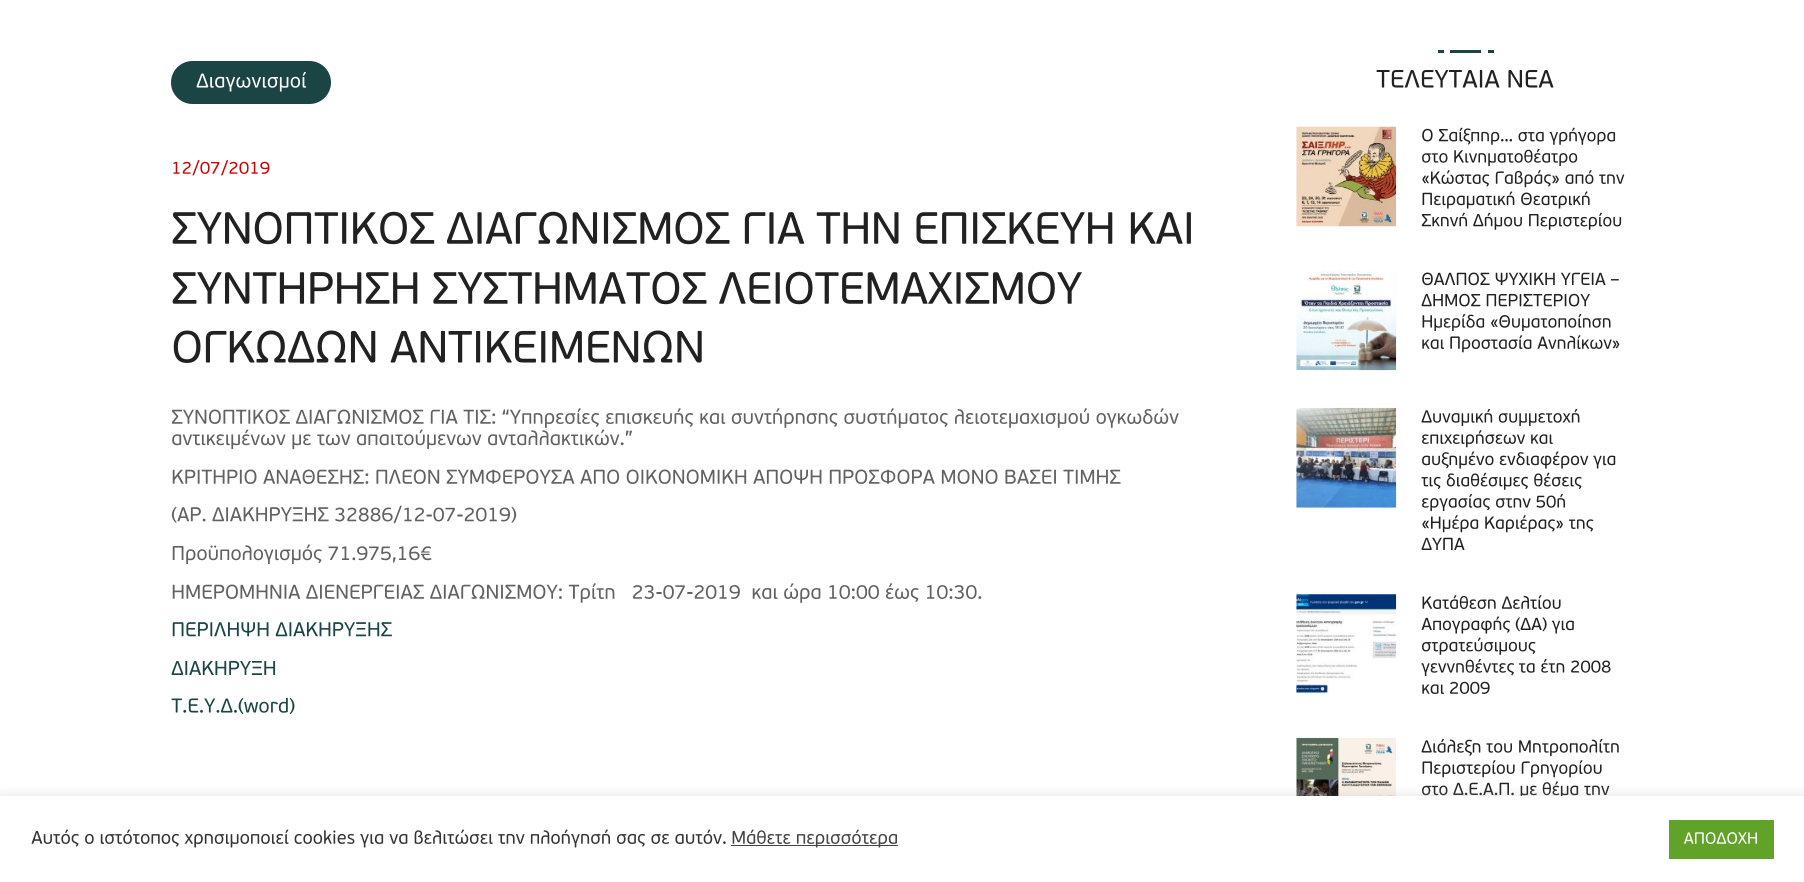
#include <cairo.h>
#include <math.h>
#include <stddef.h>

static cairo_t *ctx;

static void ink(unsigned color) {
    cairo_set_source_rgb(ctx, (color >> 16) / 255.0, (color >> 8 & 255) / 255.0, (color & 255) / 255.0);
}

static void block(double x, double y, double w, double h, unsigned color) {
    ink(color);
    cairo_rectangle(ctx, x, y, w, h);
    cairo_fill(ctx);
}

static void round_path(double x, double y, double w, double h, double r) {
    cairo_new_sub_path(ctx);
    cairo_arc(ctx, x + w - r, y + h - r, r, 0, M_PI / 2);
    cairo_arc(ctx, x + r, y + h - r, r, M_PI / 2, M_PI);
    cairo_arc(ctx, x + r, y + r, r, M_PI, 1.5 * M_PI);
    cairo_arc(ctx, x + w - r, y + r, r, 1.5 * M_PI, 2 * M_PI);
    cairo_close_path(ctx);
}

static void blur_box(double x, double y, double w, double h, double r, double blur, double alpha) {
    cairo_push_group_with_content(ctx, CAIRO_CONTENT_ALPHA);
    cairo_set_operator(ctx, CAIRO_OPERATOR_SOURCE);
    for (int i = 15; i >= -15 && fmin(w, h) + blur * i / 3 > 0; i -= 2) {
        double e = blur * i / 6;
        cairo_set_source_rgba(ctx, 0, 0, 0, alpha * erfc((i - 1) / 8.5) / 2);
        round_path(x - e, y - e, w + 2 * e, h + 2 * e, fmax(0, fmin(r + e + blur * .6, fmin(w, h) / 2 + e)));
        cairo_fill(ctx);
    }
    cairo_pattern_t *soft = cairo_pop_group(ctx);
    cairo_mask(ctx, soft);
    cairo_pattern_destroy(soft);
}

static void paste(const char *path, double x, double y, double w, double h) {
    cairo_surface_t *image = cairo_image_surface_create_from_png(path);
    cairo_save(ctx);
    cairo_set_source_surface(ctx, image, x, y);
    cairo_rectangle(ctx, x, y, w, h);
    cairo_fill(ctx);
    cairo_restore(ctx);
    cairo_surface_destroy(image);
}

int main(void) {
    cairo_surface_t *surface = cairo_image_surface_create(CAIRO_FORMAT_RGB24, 1804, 882);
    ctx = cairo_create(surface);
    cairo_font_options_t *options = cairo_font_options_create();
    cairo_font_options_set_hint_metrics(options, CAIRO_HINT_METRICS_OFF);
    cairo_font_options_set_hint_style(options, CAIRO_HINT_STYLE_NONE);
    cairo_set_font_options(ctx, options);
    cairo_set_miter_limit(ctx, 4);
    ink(0xffffff);
    cairo_paint(ctx);
    ink(0x1b4445);
    round_path(171, 61, 160, 43, 21.5);
    cairo_fill(ctx);
    paste("pic1.png", 196, 72, 111, 20);
    paste("pic2.png", 173, 160, 97, 16);
    paste("pic3.png", 172, 211, 941, 34);
    paste("pic4.png", 1130, 212, 61, 32);
    paste("pic5.png", 172, 271, 910, 34);
    paste("pic6.png", 173, 330, 529, 33);
    paste("pic7.png", 171, 409, 325, 15);
    paste("pic8.png", 502, 408, 677, 20);
    paste("pic9.png", 172, 429, 460, 21);
    paste("pic10.png", 172, 469, 949, 15);
    paste("pic11.png", 171, 505, 346, 19);
    paste("pic12.png", 172, 544, 260, 21);
    paste("pic13.png", 172, 583, 810, 20);
    paste("pic14.png", 172, 622, 220, 15);
    paste("pic15.png", 171, 660, 105, 15);
    paste("pic16.png", 171, 697, 124, 18);
    block(1488, 50, 6, 3, 0x1b4445);
    block(1450, 50, 31, 3, 0x1b4445);
    block(1438, 50, 6, 3, 0x1b4445);
    paste("pic17.png", 1376, 69, 178, 19);
    paste("pic18.png", 1296, 126, 101, 101);
    paste("pic19.png", 1422, 127, 194, 18);
    paste("pic20.png", 1422, 148, 156, 19);
    paste("pic21.png", 1422, 170, 203, 18);
    paste("pic22.png", 1422, 191, 168, 18);
    paste("pic23.png", 1421, 212, 201, 18);
    paste("pic24.png", 1296, 270, 101, 101);
    paste("pic25.png", 1422, 272, 197, 14);
    paste("pic26.png", 1421, 293, 169, 14);
    paste("pic27.png", 1422, 314, 189, 18);
    paste("pic28.png", 1422, 335, 198, 18);
    paste("pic29.png", 1296, 407, 101, 101);
    paste("pic30.png", 1421, 408, 159, 19);
    paste("pic31.png", 1422, 430, 131, 18);
    paste("pic32.png", 1422, 451, 194, 18);
    paste("pic33.png", 1421, 472, 161, 18);
    paste("pic34.png", 1422, 493, 144, 19);
    paste("pic35.png", 1422, 515, 172, 18);
    paste("pic36.png", 1421, 537, 44, 13);
    paste("pic37.png", 1296, 594, 101, 100);
    paste("pic38.png", 1422, 595, 139, 14);
    paste("pic39.png", 1421, 616, 153, 18);
    paste("pic40.png", 1422, 637, 114, 18);
    paste("pic41.png", 1421, 658, 93, 19);
    paste("pic42.png", 1519, 658, 92, 15);
    paste("pic43.png", 1422, 681, 68, 13);
    paste("pic44.png", 1296, 737, 101, 59);
    paste("pic45.png", 1421, 738, 198, 19);
    paste("pic46.png", 1422, 760, 180, 18);
    paste("pic47.png", 1422, 781, 188, 15);
    ink(0xacabab);
    blur_box(0, 795, 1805, 86, 0, 6, 0.3);
    block(0, 796, 1804, 86, 0xffffff);
    paste("pic48.png", 31, 829, 695, 19);
    block(731, 845, 167, 1, 0x444444);
    paste("pic49.png", 732, 829, 165, 19);
    block(1669, 820, 105, 39, 0x61a229);
    paste("pic50.png", 1684, 832, 73, 12);
    cairo_surface_write_to_png(surface, "screenshot.png");
    cairo_font_options_destroy(options);
    cairo_destroy(ctx);
    cairo_surface_destroy(surface);
    return 0;
}
